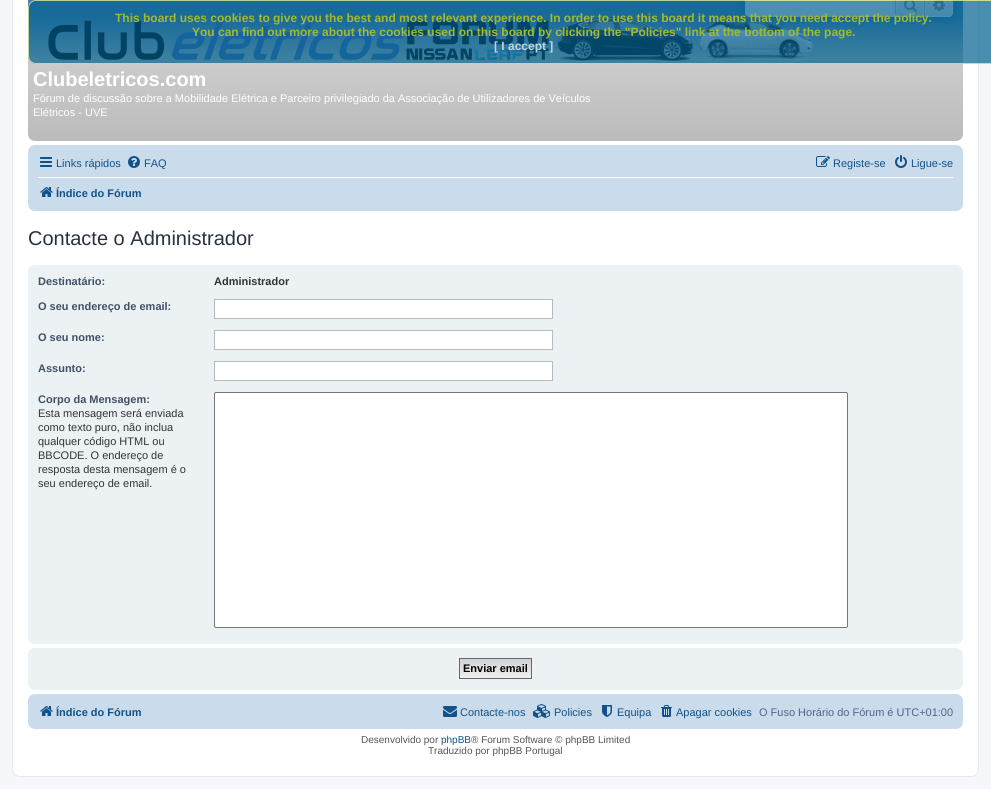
#include <cairo.h>
#include <math.h>
#include <stddef.h>

typedef struct { const char *family; double size; int italic, bold; unsigned color; } style_t;
static cairo_t *ctx;

static void ink(unsigned color) {
    cairo_set_source_rgb(ctx, (color >> 16) / 255.0, (color >> 8 & 255) / 255.0, (color & 255) / 255.0);
}

static void write(double x, double y, const char *s, const style_t *st) {
    cairo_select_font_face(ctx, st->family, st->italic ? CAIRO_FONT_SLANT_ITALIC : CAIRO_FONT_SLANT_NORMAL,
        st->bold ? CAIRO_FONT_WEIGHT_BOLD : CAIRO_FONT_WEIGHT_NORMAL);
    cairo_set_font_size(ctx, st->size);
    ink(st->color);
    cairo_move_to(ctx, x, y);
    cairo_show_text(ctx, s);
}

static void block(double x, double y, double w, double h, unsigned color) {
    ink(color);
    cairo_rectangle(ctx, x, y, w, h);
    cairo_fill(ctx);
}

static void round_path(double x, double y, double w, double h, double r) {
    cairo_new_sub_path(ctx);
    cairo_arc(ctx, x + w - r, y + h - r, r, 0, M_PI / 2);
    cairo_arc(ctx, x + r, y + h - r, r, M_PI / 2, M_PI);
    cairo_arc(ctx, x + r, y + r, r, M_PI, 1.5 * M_PI);
    cairo_arc(ctx, x + w - r, y + r, r, 1.5 * M_PI, 2 * M_PI);
    cairo_close_path(ctx);
}

static void blur_box(double x, double y, double w, double h, double r, double blur, double alpha) {
    cairo_push_group_with_content(ctx, CAIRO_CONTENT_ALPHA);
    cairo_set_operator(ctx, CAIRO_OPERATOR_SOURCE);
    for (int i = 15; i >= -15 && fmin(w, h) + blur * i / 3 > 0; i -= 2) {
        double e = blur * i / 6;
        cairo_set_source_rgba(ctx, 0, 0, 0, alpha * erfc((i - 1) / 8.5) / 2);
        round_path(x - e, y - e, w + 2 * e, h + 2 * e, fmax(0, fmin(r + e + blur * .6, fmin(w, h) / 2 + e)));
        cairo_fill(ctx);
    }
    cairo_pattern_t *soft = cairo_pop_group(ctx);
    cairo_mask(ctx, soft);
    cairo_pattern_destroy(soft);
}

static void paste(const char *path, double x, double y, double w, double h) {
    cairo_surface_t *image = cairo_image_surface_create_from_png(path);
    cairo_save(ctx);
    cairo_set_source_surface(ctx, image, x, y);
    cairo_rectangle(ctx, x, y, w, h);
    cairo_fill(ctx);
    cairo_restore(ctx);
    cairo_surface_destroy(image);
}

static const style_t s1 = {"Liberation Sans", 12, 0, 1, 0xa2ba2e};
static const style_t s2 = {"Liberation Sans", 12, 0, 1, 0xbed4df};
static const style_t s3 = {"Liberation Sans", 20, 0, 1, 0xffffff};
static const style_t s4 = {"Liberation Sans", 11, 0, 0, 0xffffff};
static const style_t s5 = {"Liberation Sans", 11, 0, 0, 0x105289};
static const style_t s6 = {"Liberation Sans", 11, 0, 1, 0x105289};
static const style_t s7 = {"Liberation Sans", 20, 0, 0, 0x28313f};
static const style_t s8 = {"Liberation Sans", 11, 0, 1, 0x425067};
static const style_t s9 = {"Liberation Sans", 11, 0, 1, 0x333333};
static const style_t s10 = {"Liberation Sans", 11, 0, 0, 0x333333};
static const style_t s11 = {"Liberation Sans", 11, 0, 1, 0x000000};
static const style_t s12 = {"Liberation Sans", 11, 0, 0, 0x536482};
static const style_t s13 = {"Liberation Sans", 10, 0, 0, 0x555555};
static const style_t s14 = {"Liberation Sans", 10, 0, 0, 0x105289};

int main(void) {
    cairo_surface_t *surface = cairo_image_surface_create(CAIRO_FORMAT_RGB24, 991, 789);
    ctx = cairo_create(surface);
    cairo_font_options_t *options = cairo_font_options_create();
    cairo_font_options_set_hint_metrics(options, CAIRO_HINT_METRICS_OFF);
    cairo_font_options_set_hint_style(options, CAIRO_HINT_STYLE_NONE);
    cairo_set_font_options(ctx, options);
    cairo_set_miter_limit(ctx, 4);
    cairo_pattern_t *gradient;
    ink(0xf5f7fa);
    cairo_paint(ctx);
    ink(0xffffff);
    round_path(12.5, -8.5, 966, 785, 7.5);
    cairo_fill_preserve(ctx);
    ink(0xe6e9ed);
    cairo_set_line_width(ctx, 1);
    cairo_stroke(ctx);
    gradient = cairo_pattern_create_linear(496, -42, 496, 141);
    cairo_pattern_add_color_stop_rgba(gradient, 0, 0.416, 0.808, 1, 1);
    cairo_pattern_add_color_stop_rgba(gradient, 0.01, 0.2, 0.463, 0.631, 1);
    cairo_pattern_add_color_stop_rgba(gradient, 0.33, 0.333, 0.525, 0.694, 1);
    cairo_pattern_add_color_stop_rgba(gradient, 0.55, 0.8, 0.8, 0.8, 1);
    cairo_pattern_add_color_stop_rgba(gradient, 1, 0.733, 0.733, 0.733, 1);
    cairo_set_source(ctx, gradient);
    cairo_pattern_destroy(gradient);
    round_path(28, -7, 935, 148, 7);
    cairo_fill(ctx);
    paste("pic3.png", 48, 16, 765, 45);
    ink(0x0075b0);
    blur_box(745, -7, 208, 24, 4, 5, 1);
    ink(0xffffff);
    cairo_new_path(ctx);
    cairo_move_to(ctx, 749, -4);
    cairo_line_to(ctx, 895, -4);
    cairo_line_to(ctx, 895, 17);
    cairo_line_to(ctx, 749, 17);
    cairo_curve_to(ctx, 747, 17, 745, 15, 745, 13);
    cairo_line_to(ctx, 745, 0);
    cairo_curve_to(ctx, 745, -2, 747, -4, 749, -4);
    cairo_close_path(ctx);
    cairo_fill(ctx);
    gradient = cairo_pattern_create_linear(910, -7, 910, 17);
    cairo_pattern_add_color_stop_rgba(gradient, 0, 1, 1, 1, 1);
    cairo_pattern_add_color_stop_rgba(gradient, 1, 0.914, 0.914, 0.914, 1);
    cairo_set_source(ctx, gradient);
    cairo_pattern_destroy(gradient);
    cairo_rectangle(ctx, 897, 0, 26, 16);
    cairo_fill(ctx);
    cairo_rectangle(ctx, 896.5, -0.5, 27, 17);
    ink(0xffffff);
    cairo_stroke(ctx);
    block(924, 0, 1, 17, 0xc7c3bf);
    block(895, 0, 1, 17, 0xc7c3bf);
    paste("pic1.png", 904, 0, 13, 12);
    gradient = cairo_pattern_create_linear(939, -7, 939, 17);
    cairo_pattern_add_color_stop_rgba(gradient, 0, 1, 1, 1, 1);
    cairo_pattern_add_color_stop_rgba(gradient, 1, 0.914, 0.914, 0.914, 1);
    cairo_set_source(ctx, gradient);
    cairo_pattern_destroy(gradient);
    cairo_new_path(ctx);
    cairo_move_to(ctx, 925, -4);
    cairo_line_to(ctx, 949, -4);
    cairo_curve_to(ctx, 951, -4, 953, -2, 953, 0);
    cairo_line_to(ctx, 953, 13);
    cairo_curve_to(ctx, 953, 15, 951, 17, 949, 17);
    cairo_line_to(ctx, 925, 17);
    cairo_close_path(ctx);
    cairo_fill(ctx);
    cairo_new_path(ctx);
    cairo_move_to(ctx, 925.5, -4.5);
    cairo_line_to(ctx, 949, -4.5);
    cairo_curve_to(ctx, 951, -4.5, 952.5, -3, 952.5, -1);
    cairo_line_to(ctx, 952.5, 13);
    cairo_curve_to(ctx, 952.5, 15, 951, 16.5, 949, 16.5);
    cairo_line_to(ctx, 925.5, 16.5);
    cairo_close_path(ctx);
    ink(0xffffff);
    cairo_stroke(ctx);
    paste("pic2.png", 933, 0, 12, 11);
    cairo_set_source_rgba(ctx, 0, 0.376, 0.561, 0.7);
    round_path(28, 0, 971, 64, 8);
    cairo_fill(ctx);
    round_path(28.5, 0.5, 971, 63, 7.5);
    cairo_set_source_rgba(ctx, 1, 1, 0.541, 0.7);
    cairo_stroke(ctx);
    write(115, 22, "This board uses cookies to give you the best and most relevant experience. In order to use this board it means that you need accept the policy.", &s1);
    write(192, 36, "You can find out more about the cookies used on this board by clicking the \"Policies\" link at the bottom of the page.", &s1);
    write(494, 50, "[ I accept ]", &s2);
    write(33, 86, "Clubeletricos.com", &s3);
    write(33, 102, "Fórum de discussão sobre a Mobilidade Elétrica e Parceiro privilegiado da Associação de Utilizadores de Veículos", &s4);
    write(33, 116, "Elétricos - UVE", &s4);
    ink(0xcadceb);
    round_path(28, 145, 935, 66, 7);
    cairo_fill(ctx);
    paste("pic4.png", 40, 157, 12, 10);
    write(56, 167, "Links rápidos", &s5);
    paste("pic5.png", 128, 156, 12, 12);
    write(144, 167, "FAQ", &s5);
    paste("pic6.png", 816, 156, 14, 11);
    write(833, 167, "Registe-se", &s5);
    paste("pic7.png", 895, 155, 12, 13);
    write(911, 167, "Ligue-se", &s5);
    block(38, 177, 915, 1, 0xffffff);
    paste("pic8.png", 40, 187, 13, 10);
    write(56, 197, "Índice do Fórum", &s6);
    write(28, 245, "Contacte o Administrador", &s7);
    ink(0xecf1f3);
    round_path(28, 265, 935, 379, 7);
    cairo_fill(ctx);
    write(38, 285, "Destinatário:", &s8);
    write(214, 285, "Administrador", &s9);
    write(38, 310, "O seu endereço de email:", &s8);
    ink(0xffffff);
    cairo_rectangle(ctx, 214.5, 299.5, 338, 19);
    cairo_fill_preserve(ctx);
    ink(0xb4bac0);
    cairo_stroke(ctx);
    write(38, 341, "O seu nome:", &s8);
    ink(0xffffff);
    cairo_rectangle(ctx, 214.5, 330.5, 338, 19);
    cairo_fill_preserve(ctx);
    ink(0xb4bac0);
    cairo_stroke(ctx);
    write(38, 372, "Assunto:", &s8);
    ink(0xffffff);
    cairo_rectangle(ctx, 214.5, 361.5, 338, 19);
    cairo_fill_preserve(ctx);
    ink(0xb4bac0);
    cairo_stroke(ctx);
    write(38, 403, "Corpo da Mensagem:", &s8);
    write(38, 417, "Esta mensagem será enviada", &s10);
    write(38, 431, "como texto puro, não inclua", &s10);
    write(38, 445, "qualquer código HTML ou", &s10);
    write(38, 459, "BBCODE. O endereço de", &s10);
    write(38, 473, "resposta desta mensagem é o", &s10);
    write(38, 487, "seu endereço de email.", &s10);
    ink(0xffffff);
    round_path(214.5, 392.5, 633, 235, 1.5);
    cairo_fill_preserve(ctx);
    ink(0x767676);
    cairo_stroke(ctx);
    ink(0xecf1f3);
    round_path(28, 648, 935, 42, 7);
    cairo_fill(ctx);
    gradient = cairo_pattern_create_linear(496, 659, 496, 678);
    cairo_pattern_add_color_stop_rgba(gradient, 0, 0.824, 0.824, 0.824, 1);
    cairo_pattern_add_color_stop_rgba(gradient, 1, 0.937, 0.937, 0.937, 1);
    cairo_set_source(ctx, gradient);
    cairo_pattern_destroy(gradient);
    cairo_rectangle(ctx, 460, 659, 71, 19);
    cairo_fill(ctx);
    cairo_rectangle(ctx, 459.5, 658.5, 72, 20);
    ink(0x666666);
    cairo_stroke(ctx);
    write(463, 672, "Enviar email", &s11);
    ink(0xcadceb);
    round_path(28, 694, 935, 35, 7);
    cairo_fill(ctx);
    paste("pic8.png", 40, 706, 13, 10);
    write(56, 716, "Índice do Fórum", &s6);
    paste("pic9.png", 443, 706, 14, 11);
    write(460, 716, "Contacte-nos", &s5);
    paste("pic10.png", 533, 704, 17, 14);
    write(554, 716, "Policies", &s5);
    paste("pic11.png", 602, 705, 10, 12);
    write(617, 716, "Equipa", &s5);
    paste("pic12.png", 661, 705, 11, 12);
    write(676, 716, "Apagar cookies", &s5);
    write(759, 716, "O Fuso Horário do Fórum é UTC+01:00", &s12);
    write(361, 743, "Desenvolvido por", &s13);
    write(441, 743, "phpBB", &s14);
    write(471, 743, "® Forum Software © phpBB Limited", &s13);
    write(428, 754, "Traduzido por phpBB Portugal", &s13);
    cairo_surface_write_to_png(surface, "screenshot.png");
    cairo_font_options_destroy(options);
    cairo_destroy(ctx);
    cairo_surface_destroy(surface);
    return 0;
}
